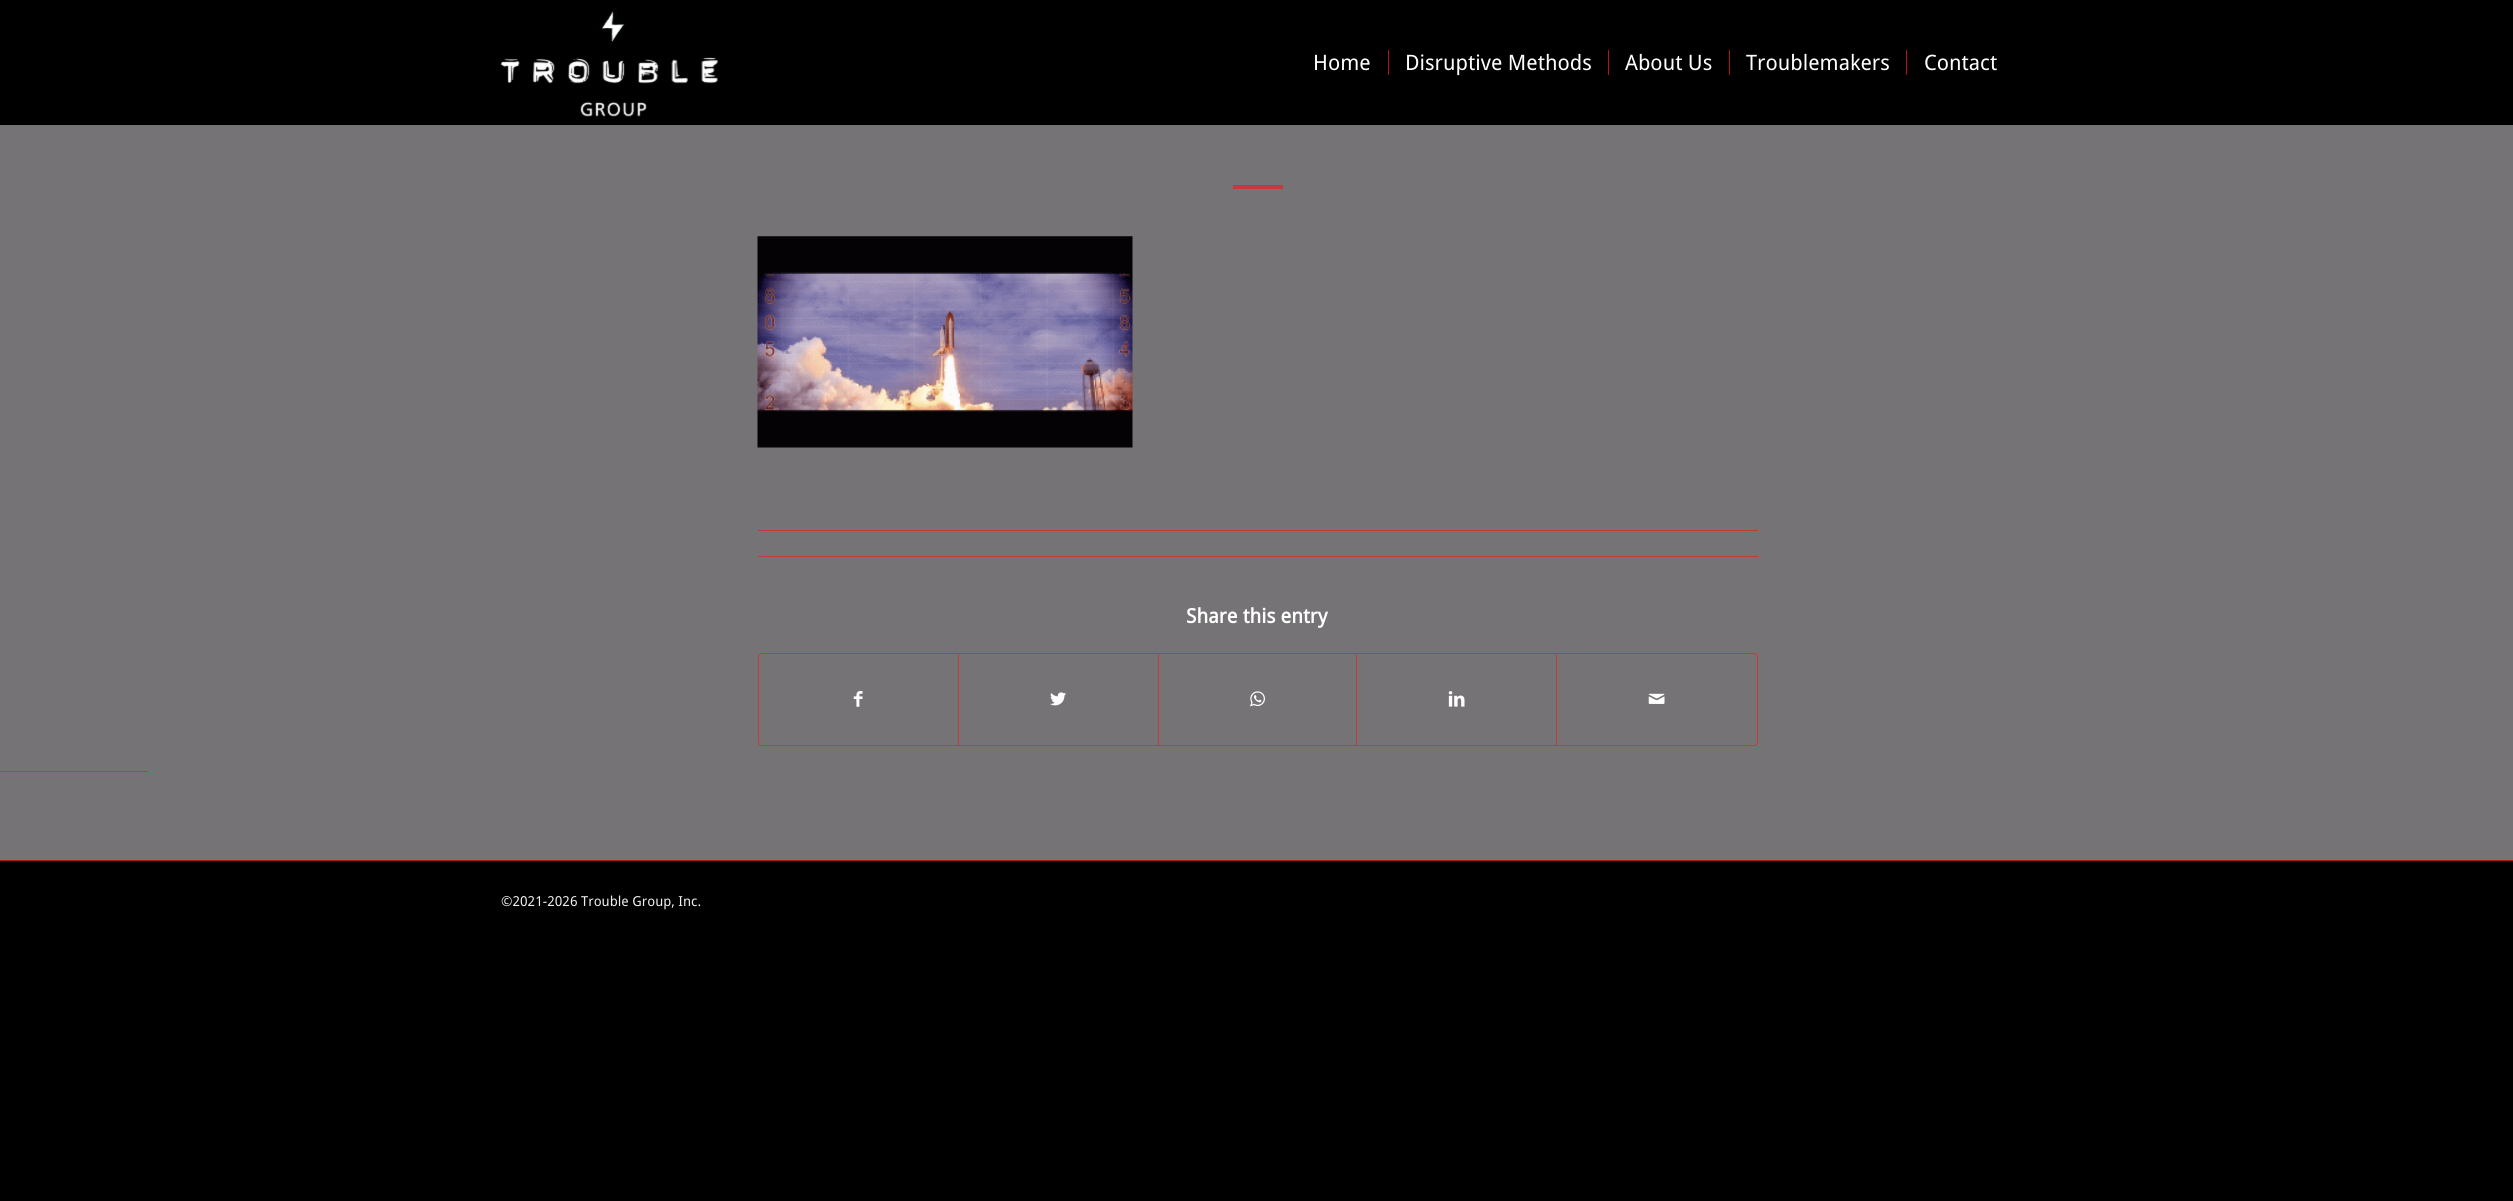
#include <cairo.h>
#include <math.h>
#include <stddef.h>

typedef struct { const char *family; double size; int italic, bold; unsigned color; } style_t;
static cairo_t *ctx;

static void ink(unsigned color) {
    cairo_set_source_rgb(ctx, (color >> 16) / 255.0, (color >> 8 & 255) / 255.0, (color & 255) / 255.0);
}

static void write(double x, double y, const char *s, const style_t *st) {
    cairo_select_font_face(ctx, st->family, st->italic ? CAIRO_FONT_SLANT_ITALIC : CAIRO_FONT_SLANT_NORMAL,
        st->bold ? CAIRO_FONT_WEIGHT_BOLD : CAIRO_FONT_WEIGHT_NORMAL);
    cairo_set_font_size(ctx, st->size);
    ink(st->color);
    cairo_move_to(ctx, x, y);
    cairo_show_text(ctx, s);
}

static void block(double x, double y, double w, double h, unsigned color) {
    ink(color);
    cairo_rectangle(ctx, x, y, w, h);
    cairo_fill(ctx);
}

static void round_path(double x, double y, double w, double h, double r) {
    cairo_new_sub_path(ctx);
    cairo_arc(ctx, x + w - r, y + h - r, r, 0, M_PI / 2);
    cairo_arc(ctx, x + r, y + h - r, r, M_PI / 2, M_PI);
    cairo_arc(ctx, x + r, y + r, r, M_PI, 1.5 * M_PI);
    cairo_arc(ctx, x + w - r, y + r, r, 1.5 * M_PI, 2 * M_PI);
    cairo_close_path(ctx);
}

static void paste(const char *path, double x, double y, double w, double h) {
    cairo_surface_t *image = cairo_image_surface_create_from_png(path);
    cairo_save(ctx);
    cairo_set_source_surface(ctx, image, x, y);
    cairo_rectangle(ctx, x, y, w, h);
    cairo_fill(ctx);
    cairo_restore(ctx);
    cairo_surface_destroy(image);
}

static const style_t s1 = {"Droid Sans", 21.25, 0, 0, 0xffffff};
static const style_t s2 = {"Droid Sans", 20, 0, 1, 0xffffff};
static const style_t s3 = {"Droid Sans", 13.75, 0, 0, 0xeeeeee};

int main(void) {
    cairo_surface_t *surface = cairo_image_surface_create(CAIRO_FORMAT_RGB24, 2513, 1201);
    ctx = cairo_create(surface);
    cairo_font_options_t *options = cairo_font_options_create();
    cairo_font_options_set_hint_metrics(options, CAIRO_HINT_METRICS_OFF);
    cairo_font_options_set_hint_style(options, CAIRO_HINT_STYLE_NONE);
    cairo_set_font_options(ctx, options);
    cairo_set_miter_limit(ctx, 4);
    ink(0x000000);
    cairo_paint(ctx);
    paste("pic1.png", 501, 7, 217, 110);
    write(1313, 70, "Home", &s1);
    write(1405, 70, "Disruptive Methods", &s1);
    block(1388, 50, 1, 25, 0xb31414);
    write(1625, 70, "About Us", &s1);
    block(1608, 50, 1, 25, 0xb31414);
    write(1746, 70, "Troublemakers", &s1);
    block(1729, 50, 1, 25, 0xb31414);
    write(1924, 70, "Contact", &s1);
    block(1906, 50, 1, 25, 0xb31414);
    block(0, 125, 2513, 735, 0x757375);
    block(1233, 185, 50, 4, 0xc23a3a);
    paste("pic2.png", 757, 236, 376, 212);
    block(758, 530, 1000, 1, 0xc23a3a);
    block(758, 556, 1000, 1, 0xc23a3a);
    write(1186, 623, "Share this entry", &s2);
    round_path(758.5, 653.5, 999, 92, 3.5);
    ink(0xc23a3a);
    cairo_set_line_width(ctx, 1);
    cairo_stroke(ctx);
    paste("pic3.png", 853, 691, 10, 16);
    block(958, 654, 1, 91, 0xc23a3a);
    paste("pic4.png", 1050, 692, 16, 14);
    block(1158, 654, 1, 91, 0xc23a3a);
    paste("pic5.png", 1250, 691, 15, 16);
    block(1356, 654, 1, 91, 0xc23a3a);
    paste("pic6.png", 1448, 691, 17, 16);
    block(1556, 654, 1, 91, 0xc23a3a);
    paste("pic7.png", 1648, 693, 17, 11);
    block(0, 771, 148, 1, 0xc23a3a);
    block(0, 860, 2513, 1, 0xb31414);
    write(501, 906, "©2021-2026 Trouble Group, Inc.", &s3);
    cairo_surface_write_to_png(surface, "screenshot.png");
    cairo_font_options_destroy(options);
    cairo_destroy(ctx);
    cairo_surface_destroy(surface);
    return 0;
}
